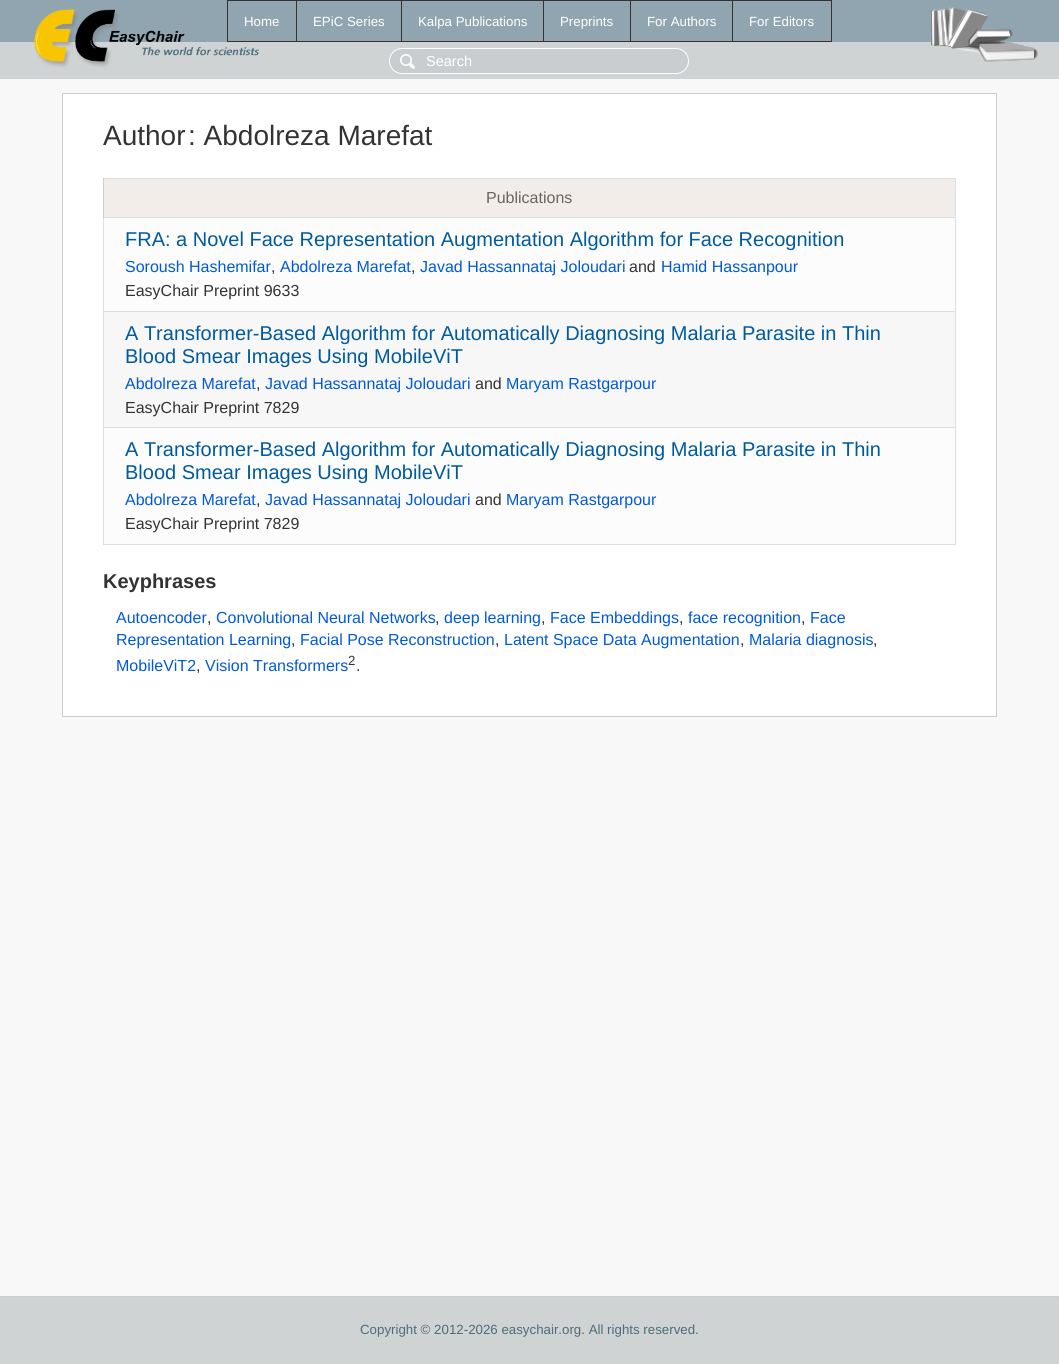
#include <cairo.h>
#include <math.h>
#include <stddef.h>

typedef struct { const char *family; double size; int italic, bold; unsigned color; } style_t;
static cairo_t *ctx;

static void ink(unsigned color) {
    cairo_set_source_rgb(ctx, (color >> 16) / 255.0, (color >> 8 & 255) / 255.0, (color & 255) / 255.0);
}

static void write(double x, double y, const char *s, const style_t *st) {
    cairo_select_font_face(ctx, st->family, st->italic ? CAIRO_FONT_SLANT_ITALIC : CAIRO_FONT_SLANT_NORMAL,
        st->bold ? CAIRO_FONT_WEIGHT_BOLD : CAIRO_FONT_WEIGHT_NORMAL);
    cairo_set_font_size(ctx, st->size);
    ink(st->color);
    cairo_move_to(ctx, x, y);
    cairo_show_text(ctx, s);
}

static void block(double x, double y, double w, double h, unsigned color) {
    ink(color);
    cairo_rectangle(ctx, x, y, w, h);
    cairo_fill(ctx);
}

static void round_path(double x, double y, double w, double h, double r) {
    cairo_new_sub_path(ctx);
    cairo_arc(ctx, x + w - r, y + h - r, r, 0, M_PI / 2);
    cairo_arc(ctx, x + r, y + h - r, r, M_PI / 2, M_PI);
    cairo_arc(ctx, x + r, y + r, r, M_PI, 1.5 * M_PI);
    cairo_arc(ctx, x + w - r, y + r, r, 1.5 * M_PI, 2 * M_PI);
    cairo_close_path(ctx);
}

static void paste(const char *path, double x, double y, double w, double h) {
    cairo_surface_t *image = cairo_image_surface_create_from_png(path);
    cairo_save(ctx);
    cairo_set_source_surface(ctx, image, x, y);
    cairo_rectangle(ctx, x, y, w, h);
    cairo_fill(ctx);
    cairo_restore(ctx);
    cairo_surface_destroy(image);
}

static const style_t s1 = {"Liberation Sans", 13.3, 0, 0, 0xffffff};
static const style_t s2 = {"Liberation Sans", 14.5, 0, 0, 0xffffff};
static const style_t s3 = {"Liberation Sans", 28, 0, 0, 0x333333};
static const style_t s4 = {"Liberation Sans", 16, 0, 0, 0x666666};
static const style_t s5 = {"Liberation Sans", 20, 0, 0, 0x005a9f};
static const style_t s6 = {"Liberation Sans", 16, 0, 0, 0x0059db};
static const style_t s7 = {"Liberation Sans", 16, 0, 0, 0x333333};
static const style_t s8 = {"Liberation Sans", 20, 0, 1, 0x333333};
static const style_t s9 = {"Liberation Sans", 13.3, 0, 0, 0x333333};
static const style_t s10 = {"Liberation Sans", 13.3, 0, 0, 0x4c6c7c};

int main(void) {
    cairo_surface_t *surface = cairo_image_surface_create(CAIRO_FORMAT_RGB24, 1059, 1364);
    ctx = cairo_create(surface);
    cairo_font_options_t *options = cairo_font_options_create();
    cairo_font_options_set_hint_metrics(options, CAIRO_HINT_METRICS_OFF);
    cairo_font_options_set_hint_style(options, CAIRO_HINT_STYLE_NONE);
    cairo_set_font_options(ctx, options);
    cairo_set_miter_limit(ctx, 4);
    ink(0x90a5b0);
    cairo_paint(ctx);
    block(0, 43, 1058, 35, 0xd0d3d4);
    block(0, 42, 1059, 1, 0xd0d3d4);
    paste("pic1.png", 34, 9, 225, 58);
    block(732, 0, 100, 1, 0x333333);
    block(831, 0, 1, 42, 0x333333);
    block(732, 41, 100, 1, 0x333333);
    block(732, 0, 1, 42, 0x333333);
    block(630, 0, 103, 1, 0x333333);
    block(630, 41, 103, 1, 0x333333);
    block(630, 0, 1, 42, 0x333333);
    block(543, 0, 88, 1, 0x333333);
    block(543, 41, 88, 1, 0x333333);
    block(543, 0, 1, 42, 0x333333);
    block(401, 0, 143, 1, 0x333333);
    block(401, 41, 143, 1, 0x333333);
    block(401, 0, 1, 42, 0x333333);
    block(296, 0, 106, 1, 0x333333);
    block(296, 41, 106, 1, 0x333333);
    block(296, 0, 1, 42, 0x333333);
    block(227, 0, 70, 1, 0x333333);
    block(227, 41, 70, 1, 0x333333);
    block(227, 0, 1, 42, 0x333333);
    write(244, 26, "Home", &s1);
    write(313, 26, "EPiC Series", &s1);
    write(418, 26, "Kalpa Publications", &s1);
    write(560, 26, "Preprints", &s1);
    write(647, 26, "For Authors", &s1);
    write(749, 26, "For Editors", &s1);
    paste("pic2.png", 931, 6, 107, 56);
    block(1058, 42, 1, 37, 0xd0d3d4);
    block(0, 78, 1059, 1, 0xd0d3d4);
    ink(0xc9cdd0);
    round_path(389, 48, 300, 26, 13);
    cairo_fill(ctx);
    paste("pic3.png", 400, 54, 15, 15);
    round_path(389.5, 48.5, 299, 25, 12.5);
    ink(0xffffff);
    cairo_set_line_width(ctx, 1);
    cairo_stroke(ctx);
    write(426, 66, "Search", &s2);
    block(0, 79, 1059, 1217, 0xf8f8f8);
    ink(0xffffff);
    cairo_rectangle(ctx, 62.5, 93.5, 934, 623);
    cairo_fill_preserve(ctx);
    ink(0xcccccc);
    cairo_stroke(ctx);
    write(103, 145, "Author", &s3);
    write(188, 145, ": Abdolreza Marefat", &s3);
    block(103, 178, 853, 1, 0xdedede);
    block(955, 178, 1, 367, 0xdedede);
    block(103, 544, 853, 1, 0xdedede);
    block(103, 218, 1, 327, 0xdedede);
    block(104, 179, 851, 38, 0xf2ede9);
    block(103, 217, 853, 1, 0xdedede);
    block(103, 178, 1, 40, 0xcccccc);
    write(486, 203, "Publications", &s4);
    block(104, 218, 851, 93, 0xfcfcfc);
    block(103, 311, 853, 1, 0xdedede);
    write(125, 246, "FRA: a Novel Face Representation Augmentation Algorithm for Face Recognition", &s5);
    write(125, 272, "Soroush Hashemifar", &s6);
    write(271, 272, ",", &s7);
    write(280, 272, "Abdolreza Marefat", &s6);
    write(411, 272, ",", &s7);
    write(420, 272, "Javad Hassannataj Joloudari", &s6);
    write(629, 272, "and", &s7);
    write(661, 272, "Hamid Hassanpour", &s6);
    write(125, 296, "EasyChair Preprint 9633", &s7);
    block(104, 312, 851, 115, 0xf7f7f7);
    block(103, 427, 853, 1, 0xdedede);
    write(125, 340, "A Transformer-Based Algorithm for Automatically Diagnosing Malaria Parasite in Thin", &s5);
    write(125, 363, "Blood Smear Images Using MobileViT", &s5);
    write(125, 389, "Abdolreza Marefat", &s6);
    write(256, 389, ",", &s7);
    write(265, 389, "Javad Hassannataj Joloudari", &s6);
    write(475, 389, "and", &s7);
    write(506, 389, "Maryam Rastgarpour", &s6);
    write(125, 413, "EasyChair Preprint 7829", &s7);
    block(104, 428, 851, 116, 0xfcfcfc);
    write(125, 456, "A Transformer-Based Algorithm for Automatically Diagnosing Malaria Parasite in Thin", &s5);
    write(125, 479, "Blood Smear Images Using MobileViT", &s5);
    write(125, 505, "Abdolreza Marefat", &s6);
    write(256, 505, ",", &s7);
    write(265, 505, "Javad Hassannataj Joloudari", &s6);
    write(475, 505, "and", &s7);
    write(506, 505, "Maryam Rastgarpour", &s6);
    write(125, 529, "EasyChair Preprint 7829", &s7);
    write(103, 588, "Keyphrases", &s8);
    write(116, 623, "Autoencoder", &s6);
    write(207, 623, ",", &s7);
    write(216, 623, "Convolutional Neural Networks", &s6);
    write(435, 623, ",", &s7);
    write(444, 623, "deep learning", &s6);
    write(541, 623, ",", &s7);
    write(550, 623, "Face Embeddings", &s6);
    write(679, 623, ",", &s7);
    write(688, 623, "face recognition", &s6);
    write(801, 623, ",", &s7);
    write(810, 623, "Face", &s6);
    write(116, 645, "Representation Learning", &s6);
    write(291, 645, ",", &s7);
    write(300, 645, "Facial Pose Reconstruction", &s6);
    write(495, 645, ",", &s7);
    write(504, 645, "Latent Space Data Augmentation", &s6);
    write(740, 645, ",", &s7);
    write(749, 645, "Malaria diagnosis", &s6);
    write(873, 645, ",", &s7);
    write(116, 671, "MobileViT2", &s6);
    write(196, 671, ",", &s7);
    write(205, 671, "Vision Transformers", &s6);
    write(348, 665, "2", &s9);
    write(356, 671, ".", &s7);
    block(0, 1297, 1059, 67, 0xd0d3d4);
    block(0, 1296, 1059, 1, 0xcccccc);
    write(360, 1334, "Copyright © 2012-2026 easychair.org. All rights reserved.", &s10);
    cairo_surface_write_to_png(surface, "screenshot.png");
    cairo_font_options_destroy(options);
    cairo_destroy(ctx);
    cairo_surface_destroy(surface);
    return 0;
}
